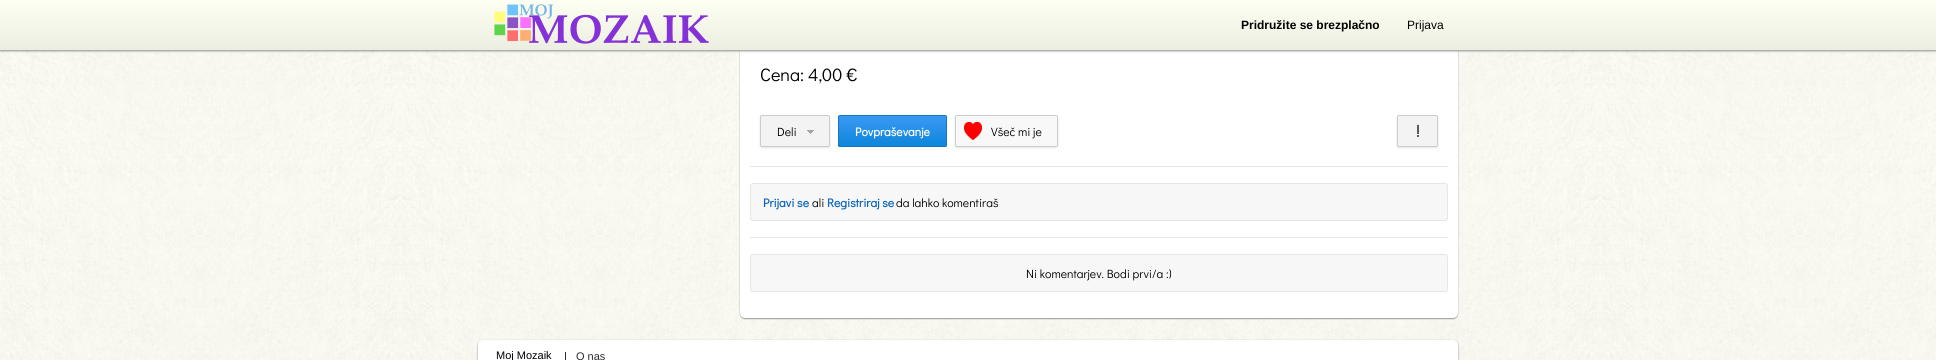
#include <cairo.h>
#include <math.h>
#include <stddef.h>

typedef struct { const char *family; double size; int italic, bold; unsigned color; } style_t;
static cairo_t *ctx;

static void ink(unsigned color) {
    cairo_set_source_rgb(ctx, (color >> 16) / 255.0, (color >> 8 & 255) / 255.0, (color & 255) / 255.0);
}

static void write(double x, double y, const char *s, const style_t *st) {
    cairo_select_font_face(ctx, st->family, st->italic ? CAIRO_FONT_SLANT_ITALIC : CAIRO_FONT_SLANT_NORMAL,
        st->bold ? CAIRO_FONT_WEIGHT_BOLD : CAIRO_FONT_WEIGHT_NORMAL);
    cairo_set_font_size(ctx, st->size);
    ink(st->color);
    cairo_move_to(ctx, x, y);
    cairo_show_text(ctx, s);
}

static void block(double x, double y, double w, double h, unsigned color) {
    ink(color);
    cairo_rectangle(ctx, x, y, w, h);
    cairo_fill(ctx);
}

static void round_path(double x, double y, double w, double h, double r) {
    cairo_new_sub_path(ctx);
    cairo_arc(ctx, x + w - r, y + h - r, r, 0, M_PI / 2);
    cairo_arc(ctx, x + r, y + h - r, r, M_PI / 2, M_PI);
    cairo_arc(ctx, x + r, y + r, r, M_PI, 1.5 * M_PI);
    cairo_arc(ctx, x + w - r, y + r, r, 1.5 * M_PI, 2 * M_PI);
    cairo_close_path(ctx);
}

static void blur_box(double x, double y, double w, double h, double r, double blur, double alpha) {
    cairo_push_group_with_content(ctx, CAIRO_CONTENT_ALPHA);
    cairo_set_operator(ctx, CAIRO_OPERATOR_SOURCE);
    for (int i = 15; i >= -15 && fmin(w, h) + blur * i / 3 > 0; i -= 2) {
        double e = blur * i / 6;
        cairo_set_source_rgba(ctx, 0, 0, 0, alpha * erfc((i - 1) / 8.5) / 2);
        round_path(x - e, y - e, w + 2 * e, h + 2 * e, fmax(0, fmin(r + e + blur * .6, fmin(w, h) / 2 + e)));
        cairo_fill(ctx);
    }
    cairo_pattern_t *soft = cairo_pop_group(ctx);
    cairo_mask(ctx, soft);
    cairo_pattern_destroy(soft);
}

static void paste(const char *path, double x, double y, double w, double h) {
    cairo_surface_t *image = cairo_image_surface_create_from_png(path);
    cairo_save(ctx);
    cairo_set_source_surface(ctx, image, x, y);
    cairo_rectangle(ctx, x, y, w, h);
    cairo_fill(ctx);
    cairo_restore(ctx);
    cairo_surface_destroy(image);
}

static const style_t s1 = {"Liberation Sans", 12, 0, 1, 0x000000};
static const style_t s2 = {"Liberation Sans", 12, 0, 0, 0x000000};
static const style_t s3 = {"Didact Gothic", 18, 0, 0, 0x000000};
static const style_t s4 = {"Didact Gothic", 12, 0, 0, 0x000000};
static const style_t s5 = {"Didact Gothic", 12, 0, 1, 0xffffff};
static const style_t s6 = {"Didact Gothic", 12, 0, 1, 0x1066b7};
static const style_t s7 = {"Liberation Sans", 11, 0, 0, 0x000000};
static const style_t s8 = {"Liberation Sans", 11, 0, 0, 0x2d2d2d};

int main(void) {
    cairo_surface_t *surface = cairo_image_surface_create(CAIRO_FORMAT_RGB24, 1936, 360);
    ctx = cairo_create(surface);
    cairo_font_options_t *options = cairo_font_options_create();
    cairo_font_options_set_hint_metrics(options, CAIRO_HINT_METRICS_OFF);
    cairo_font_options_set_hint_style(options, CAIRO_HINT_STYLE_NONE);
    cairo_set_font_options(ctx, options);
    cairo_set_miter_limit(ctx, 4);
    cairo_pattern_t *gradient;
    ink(0xffffff);
    cairo_paint(ctx);
    paste("pic1.png", 0, 50, 1936, 310);
    ink(0xa1a1a1);
    blur_box(740, -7, 718, 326, 5, 0.5, 1);
    ink(0xffffff);
    round_path(740, -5, 718, 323, 5);
    cairo_fill(ctx);
    ink(0x909090);
    blur_box(0, 1, 1936, 50, 0, 1, 1);
    gradient = cairo_pattern_create_linear(968, 0, 968, 50);
    cairo_pattern_add_color_stop_rgba(gradient, 0, 0.996, 1, 0.953, 1);
    cairo_pattern_add_color_stop_rgba(gradient, 1, 0.925, 0.933, 0.886, 1);
    cairo_set_source(ctx, gradient);
    cairo_pattern_destroy(gradient);
    cairo_rectangle(ctx, 0, 0, 1936, 50);
    cairo_fill(ctx);
    paste("pic2.png", 494, 4, 215, 40);
    write(1241, 29, "Pridružite se brezplačno", &s1);
    write(1407, 29, "Prijava", &s2);
    write(760, 81, "Cena: 4,00 €", &s3);
    block(750, 166, 698, 1, 0xe7e7e7);
    ink(0xe5e5e5);
    blur_box(760, 116, 70, 32, 2, 1, 1);
    ink(0xf3f3f3);
    round_path(760, 115, 70, 32, 2);
    cairo_fill(ctx);
    paste("pic3.png", 807, 130, 7, 4);
    round_path(760.5, 115.5, 69, 31, 1.5);
    ink(0xcccccc);
    cairo_set_line_width(ctx, 1);
    cairo_stroke(ctx);
    write(777, 136, "Deli", &s4);
    paste("pic4.png", 838, 116, 109, 31);
    round_path(838.5, 115.5, 108, 31, 1.5);
    ink(0x1378c0);
    cairo_stroke(ctx);
    write(855, 136, "Povpraševanje", &s5);
    ink(0xe5e5e5);
    blur_box(955, 116, 103, 32, 2, 1, 1);
    ink(0xf8f8f8);
    round_path(955, 115, 103, 32, 2);
    cairo_fill(ctx);
    paste("pic5.png", 964, 122, 18, 18);
    round_path(955.5, 115.5, 102, 31, 1.5);
    ink(0xcccccc);
    cairo_stroke(ctx);
    write(991, 136, "Všeč mi je", &s4);
    ink(0xe5e5e5);
    blur_box(1397, 116, 41, 32, 2, 1, 1);
    ink(0xf3f3f3);
    round_path(1397, 115, 41, 32, 2);
    cairo_fill(ctx);
    paste("pic6.png", 1417, 125, 2, 12);
    round_path(1397.5, 115.5, 40, 31, 1.5);
    ink(0xcccccc);
    cairo_stroke(ctx);
    ink(0xf7f7f7);
    round_path(750.5, 183.5, 697, 37, 2.5);
    cairo_fill_preserve(ctx);
    ink(0xe6e6e6);
    cairo_stroke(ctx);
    write(763, 207, "Prijavi se", &s6);
    write(812, 207, "ali", &s4);
    write(827, 207, "Registriraj se", &s6);
    write(896, 207, "da lahko komentiraš", &s4);
    block(750, 237, 698, 1, 0xe7e7e7);
    ink(0xf7f7f7);
    round_path(750.5, 254.5, 697, 37, 2.5);
    cairo_fill_preserve(ctx);
    ink(0xe6e6e6);
    cairo_stroke(ctx);
    write(1026, 278, "Ni komentarjev. Bodi prvi/a :)", &s4);
    ink(0x909090);
    blur_box(478, 341, 980, 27, 5, 1, 1);
    ink(0xffffff);
    round_path(478, 340, 980, 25, 5);
    cairo_fill(ctx);
    write(496, 359, "Moj Mozaik", &s7);
    paste("pic7.png", 565, 352, 1, 8);
    write(576, 360, "O nas", &s8);
    cairo_surface_write_to_png(surface, "screenshot.png");
    cairo_font_options_destroy(options);
    cairo_destroy(ctx);
    cairo_surface_destroy(surface);
    return 0;
}
